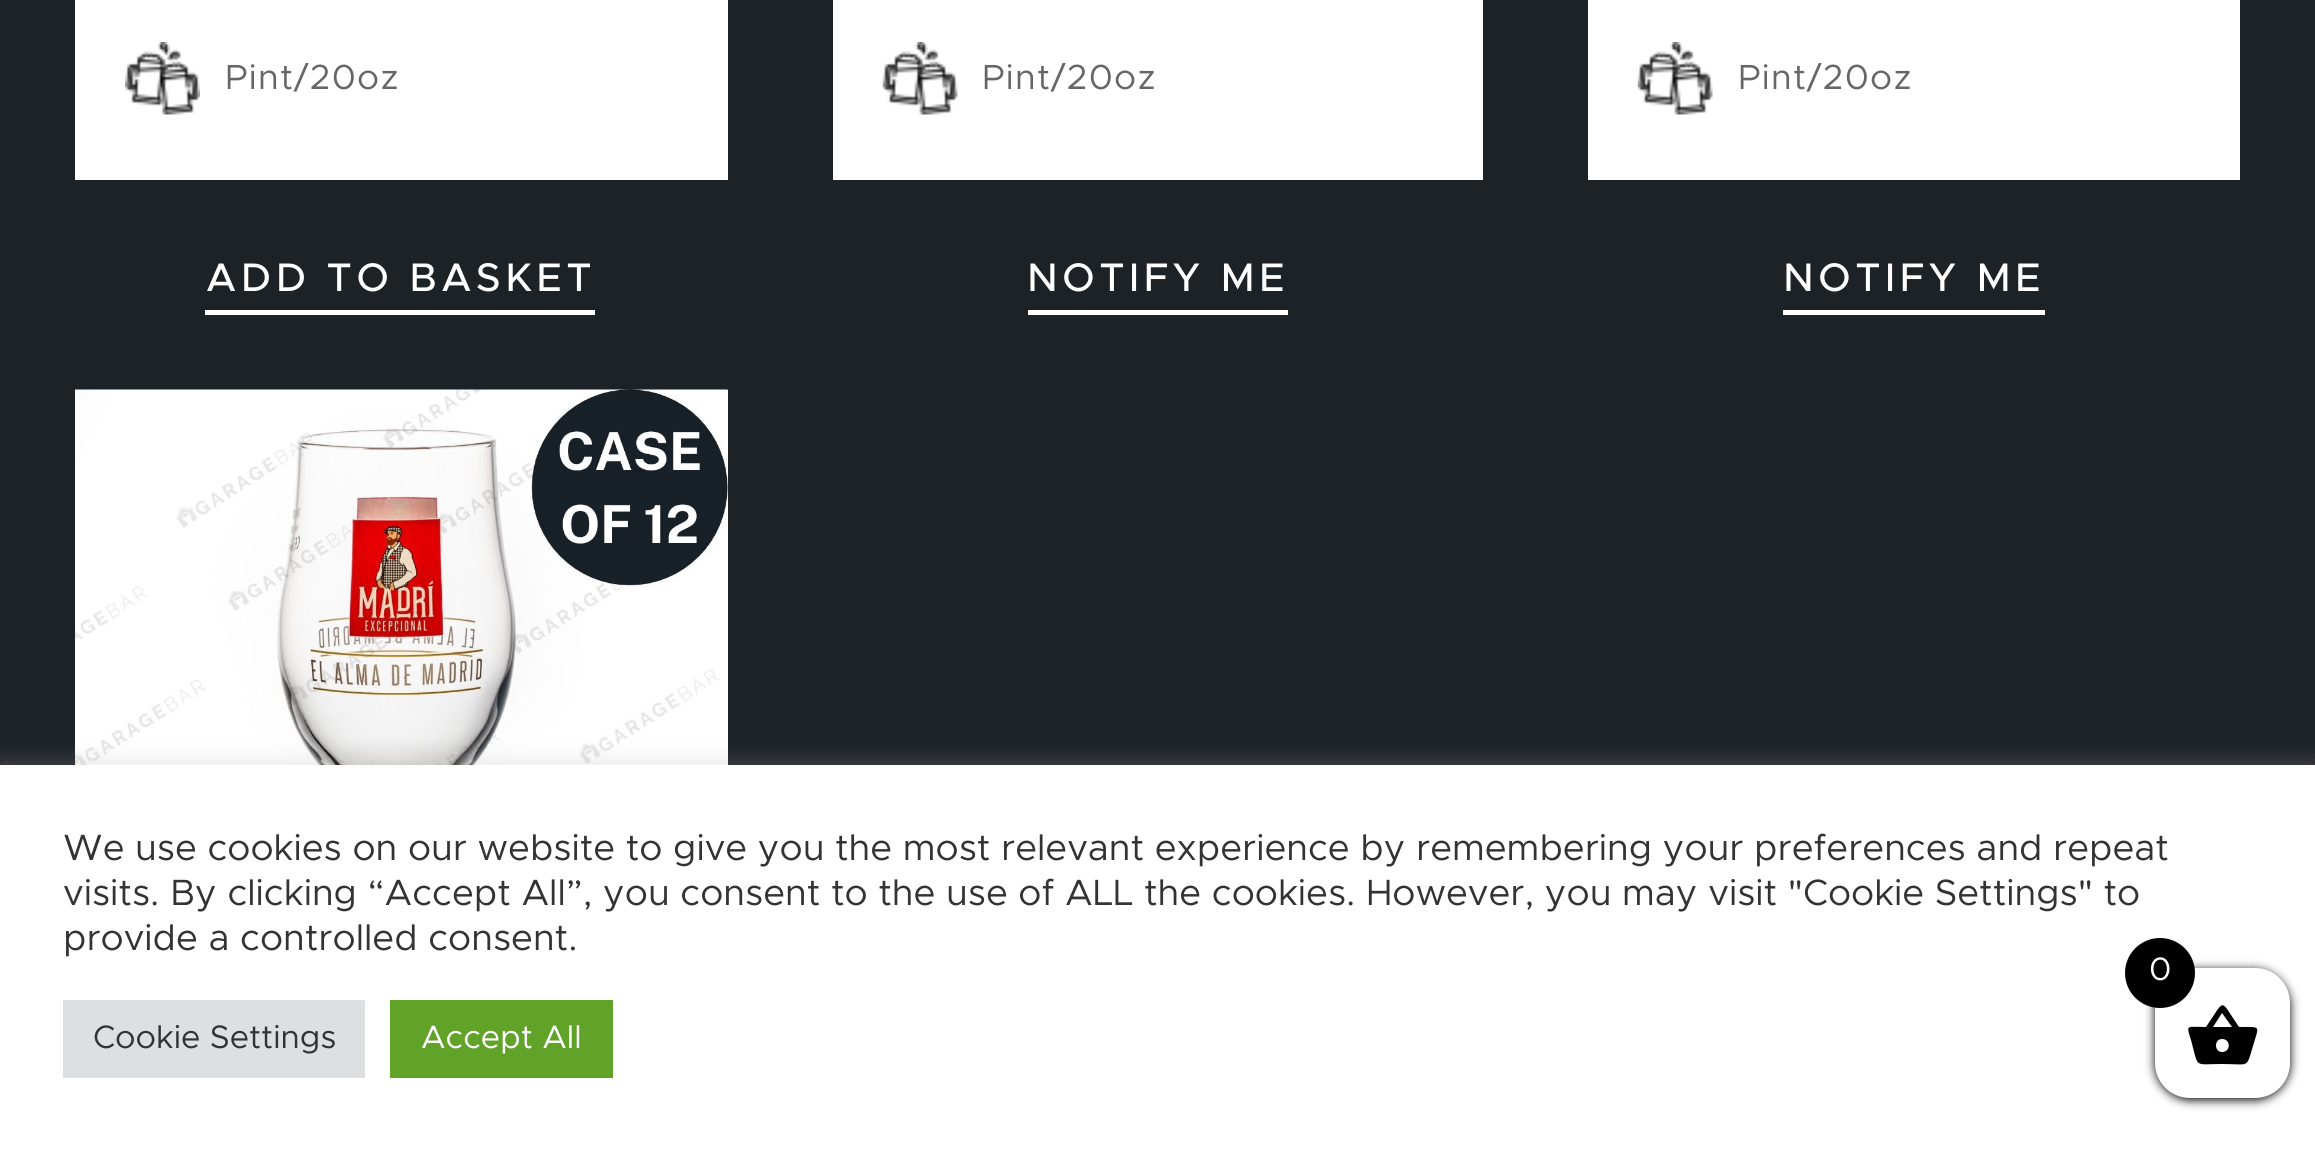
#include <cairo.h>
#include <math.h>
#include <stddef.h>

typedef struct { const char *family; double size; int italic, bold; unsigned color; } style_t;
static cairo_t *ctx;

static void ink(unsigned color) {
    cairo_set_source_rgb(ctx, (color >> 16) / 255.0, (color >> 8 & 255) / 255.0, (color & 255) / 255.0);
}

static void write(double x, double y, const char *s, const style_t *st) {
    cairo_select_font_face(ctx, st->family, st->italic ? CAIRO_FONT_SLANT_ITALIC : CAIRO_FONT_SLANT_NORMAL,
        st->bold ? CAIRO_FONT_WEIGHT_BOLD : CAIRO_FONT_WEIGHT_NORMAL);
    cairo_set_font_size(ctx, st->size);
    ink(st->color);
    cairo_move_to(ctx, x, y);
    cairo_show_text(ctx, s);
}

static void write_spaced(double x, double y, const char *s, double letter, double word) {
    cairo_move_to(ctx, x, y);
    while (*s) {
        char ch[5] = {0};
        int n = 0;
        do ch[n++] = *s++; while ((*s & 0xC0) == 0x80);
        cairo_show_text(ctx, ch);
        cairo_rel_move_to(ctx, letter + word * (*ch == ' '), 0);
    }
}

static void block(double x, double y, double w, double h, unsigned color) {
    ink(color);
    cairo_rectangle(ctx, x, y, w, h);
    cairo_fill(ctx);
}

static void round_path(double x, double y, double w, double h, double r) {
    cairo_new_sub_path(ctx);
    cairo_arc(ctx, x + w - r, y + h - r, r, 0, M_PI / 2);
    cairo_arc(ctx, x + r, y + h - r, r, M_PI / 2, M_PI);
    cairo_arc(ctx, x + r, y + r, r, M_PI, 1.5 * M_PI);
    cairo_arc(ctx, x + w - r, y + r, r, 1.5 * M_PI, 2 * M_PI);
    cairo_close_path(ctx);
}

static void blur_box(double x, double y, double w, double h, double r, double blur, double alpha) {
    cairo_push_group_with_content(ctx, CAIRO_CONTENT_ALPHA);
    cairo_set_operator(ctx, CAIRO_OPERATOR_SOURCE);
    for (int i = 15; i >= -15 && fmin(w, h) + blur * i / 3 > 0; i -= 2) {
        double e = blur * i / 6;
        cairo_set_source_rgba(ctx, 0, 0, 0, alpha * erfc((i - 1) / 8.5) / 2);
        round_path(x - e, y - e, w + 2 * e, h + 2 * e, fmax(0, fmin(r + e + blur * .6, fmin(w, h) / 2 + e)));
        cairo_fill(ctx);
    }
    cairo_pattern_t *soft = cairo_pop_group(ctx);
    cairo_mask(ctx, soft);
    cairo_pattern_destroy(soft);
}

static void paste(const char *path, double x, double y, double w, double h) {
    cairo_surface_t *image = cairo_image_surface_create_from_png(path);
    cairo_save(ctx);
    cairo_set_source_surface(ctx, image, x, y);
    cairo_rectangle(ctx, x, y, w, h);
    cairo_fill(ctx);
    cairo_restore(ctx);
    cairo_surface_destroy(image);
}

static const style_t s1 = {"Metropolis", 36.67, 0, 0, 0x333333};
static const style_t s2 = {"Metropolis", 32.5, 0, 0, 0x333333};
static const style_t s3 = {"Metropolis", 32.5, 0, 0, 0xffffff};

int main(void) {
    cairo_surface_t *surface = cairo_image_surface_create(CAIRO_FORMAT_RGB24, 2315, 1152);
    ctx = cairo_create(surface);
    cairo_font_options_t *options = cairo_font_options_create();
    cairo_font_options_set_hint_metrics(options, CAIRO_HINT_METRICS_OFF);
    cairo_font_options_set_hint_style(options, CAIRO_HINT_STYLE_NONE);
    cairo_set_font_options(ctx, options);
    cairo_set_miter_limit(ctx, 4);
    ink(0x1d2227);
    cairo_paint(ctx);
    block(75, 0, 653, 180, 0xffffff);
    paste("pic1.png", 125, 42, 75, 73);
    cairo_select_font_face(ctx, "Metropolis", CAIRO_FONT_SLANT_NORMAL, CAIRO_FONT_WEIGHT_NORMAL);
    cairo_set_font_size(ctx, 35);
    ink(0x666666);
    write_spaced(225, 89, "Pint/20oz", 1.25, 0);
    block(205, 310, 390, 5, 0xffffff);
    cairo_select_font_face(ctx, "Metropolis Medium", CAIRO_FONT_SLANT_NORMAL, CAIRO_FONT_WEIGHT_NORMAL);
    cairo_set_font_size(ctx, 40);
    write_spaced(206, 291, "ADD TO BASKET", 4.5, 0);
    block(833, 0, 650, 180, 0xffffff);
    paste("pic2.png", 882, 42, 76, 73);
    cairo_select_font_face(ctx, "Metropolis", CAIRO_FONT_SLANT_NORMAL, CAIRO_FONT_WEIGHT_NORMAL);
    cairo_set_font_size(ctx, 35);
    ink(0x666666);
    write_spaced(982, 89, "Pint/20oz", 1.25, 0);
    block(1028, 310, 260, 5, 0xffffff);
    cairo_select_font_face(ctx, "Metropolis Medium", CAIRO_FONT_SLANT_NORMAL, CAIRO_FONT_WEIGHT_NORMAL);
    cairo_set_font_size(ctx, 40);
    write_spaced(1027, 291, "NOTIFY ME", 4.5, 0);
    block(1588, 0, 652, 180, 0xffffff);
    paste("pic2.png", 1637, 42, 76, 73);
    cairo_select_font_face(ctx, "Metropolis", CAIRO_FONT_SLANT_NORMAL, CAIRO_FONT_WEIGHT_NORMAL);
    cairo_set_font_size(ctx, 35);
    ink(0x666666);
    write_spaced(1738, 89, "Pint/20oz", 1.25, 0);
    block(1783, 310, 262, 5, 0xffffff);
    cairo_select_font_face(ctx, "Metropolis Medium", CAIRO_FONT_SLANT_NORMAL, CAIRO_FONT_WEIGHT_NORMAL);
    cairo_set_font_size(ctx, 40);
    write_spaced(1783, 291, "NOTIFY ME", 4.5, 0);
    block(727, 390, 1, 375, 0xffffff);
    paste("pic3.png", 75, 389, 653, 376);
    ink(0xacabab);
    blur_box(0, 763, 2315, 387, 0, 12.5, 0.3);
    block(0, 765, 2315, 387, 0xffffff);
    write(63, 860, "We use cookies on our website to give you the most relevant experience by remembering your preferences and repeat", &s1);
    write(63, 905, "visits. By clicking “Accept All”, you consent to the use of ALL the cookies. However, you may visit \"Cookie Settings\" to", &s1);
    write(63, 950, "provide a controlled consent.", &s1);
    block(63, 1000, 302, 78, 0xdedfe0);
    write(93, 1048, "Cookie Settings", &s2);
    block(390, 1000, 223, 78, 0x61a229);
    write(421, 1048, "Accept All", &s3);
    ink(0x000000);
    blur_box(2155, 970, 135, 130, 35, 5, 1);
    ink(0xffffff);
    round_path(2155, 968, 135, 130, 35);
    cairo_fill(ctx);
    ink(0x000000);
    cairo_arc(ctx, 2160, 973, 35, 0, 2 * M_PI);
    cairo_fill(ctx);
    write(2149, 980, "0", &s3);
    ink(0x000000);
    cairo_new_path(ctx);
    cairo_move_to(ctx, 2222, 1052);
    cairo_curve_to(ctx, 2231, 1052, 2231, 1039, 2222, 1039);
    cairo_curve_to(ctx, 2214, 1039, 2214, 1052, 2222, 1052);
    cairo_close_path(ctx);
    cairo_move_to(ctx, 2213, 1027);
    cairo_line_to(ctx, 2232, 1027);
    cairo_line_to(ctx, 2222, 1013);
    cairo_close_path(ctx);
    cairo_move_to(ctx, 2239, 1027);
    cairo_curve_to(ctx, 2262, 1027, 2259, 1025, 2253, 1046);
    cairo_curve_to(ctx, 2246, 1069, 2250, 1064, 2222, 1064);
    cairo_curve_to(ctx, 2193, 1064, 2199, 1069, 2191, 1040);
    cairo_curve_to(ctx, 2186, 1024, 2186, 1027, 2206, 1027);
    cairo_curve_to(ctx, 2226, 998, 2219, 998, 2239, 1027);
    cairo_close_path(ctx);
    cairo_fill(ctx);
    cairo_surface_write_to_png(surface, "screenshot.png");
    cairo_font_options_destroy(options);
    cairo_destroy(ctx);
    cairo_surface_destroy(surface);
    return 0;
}
